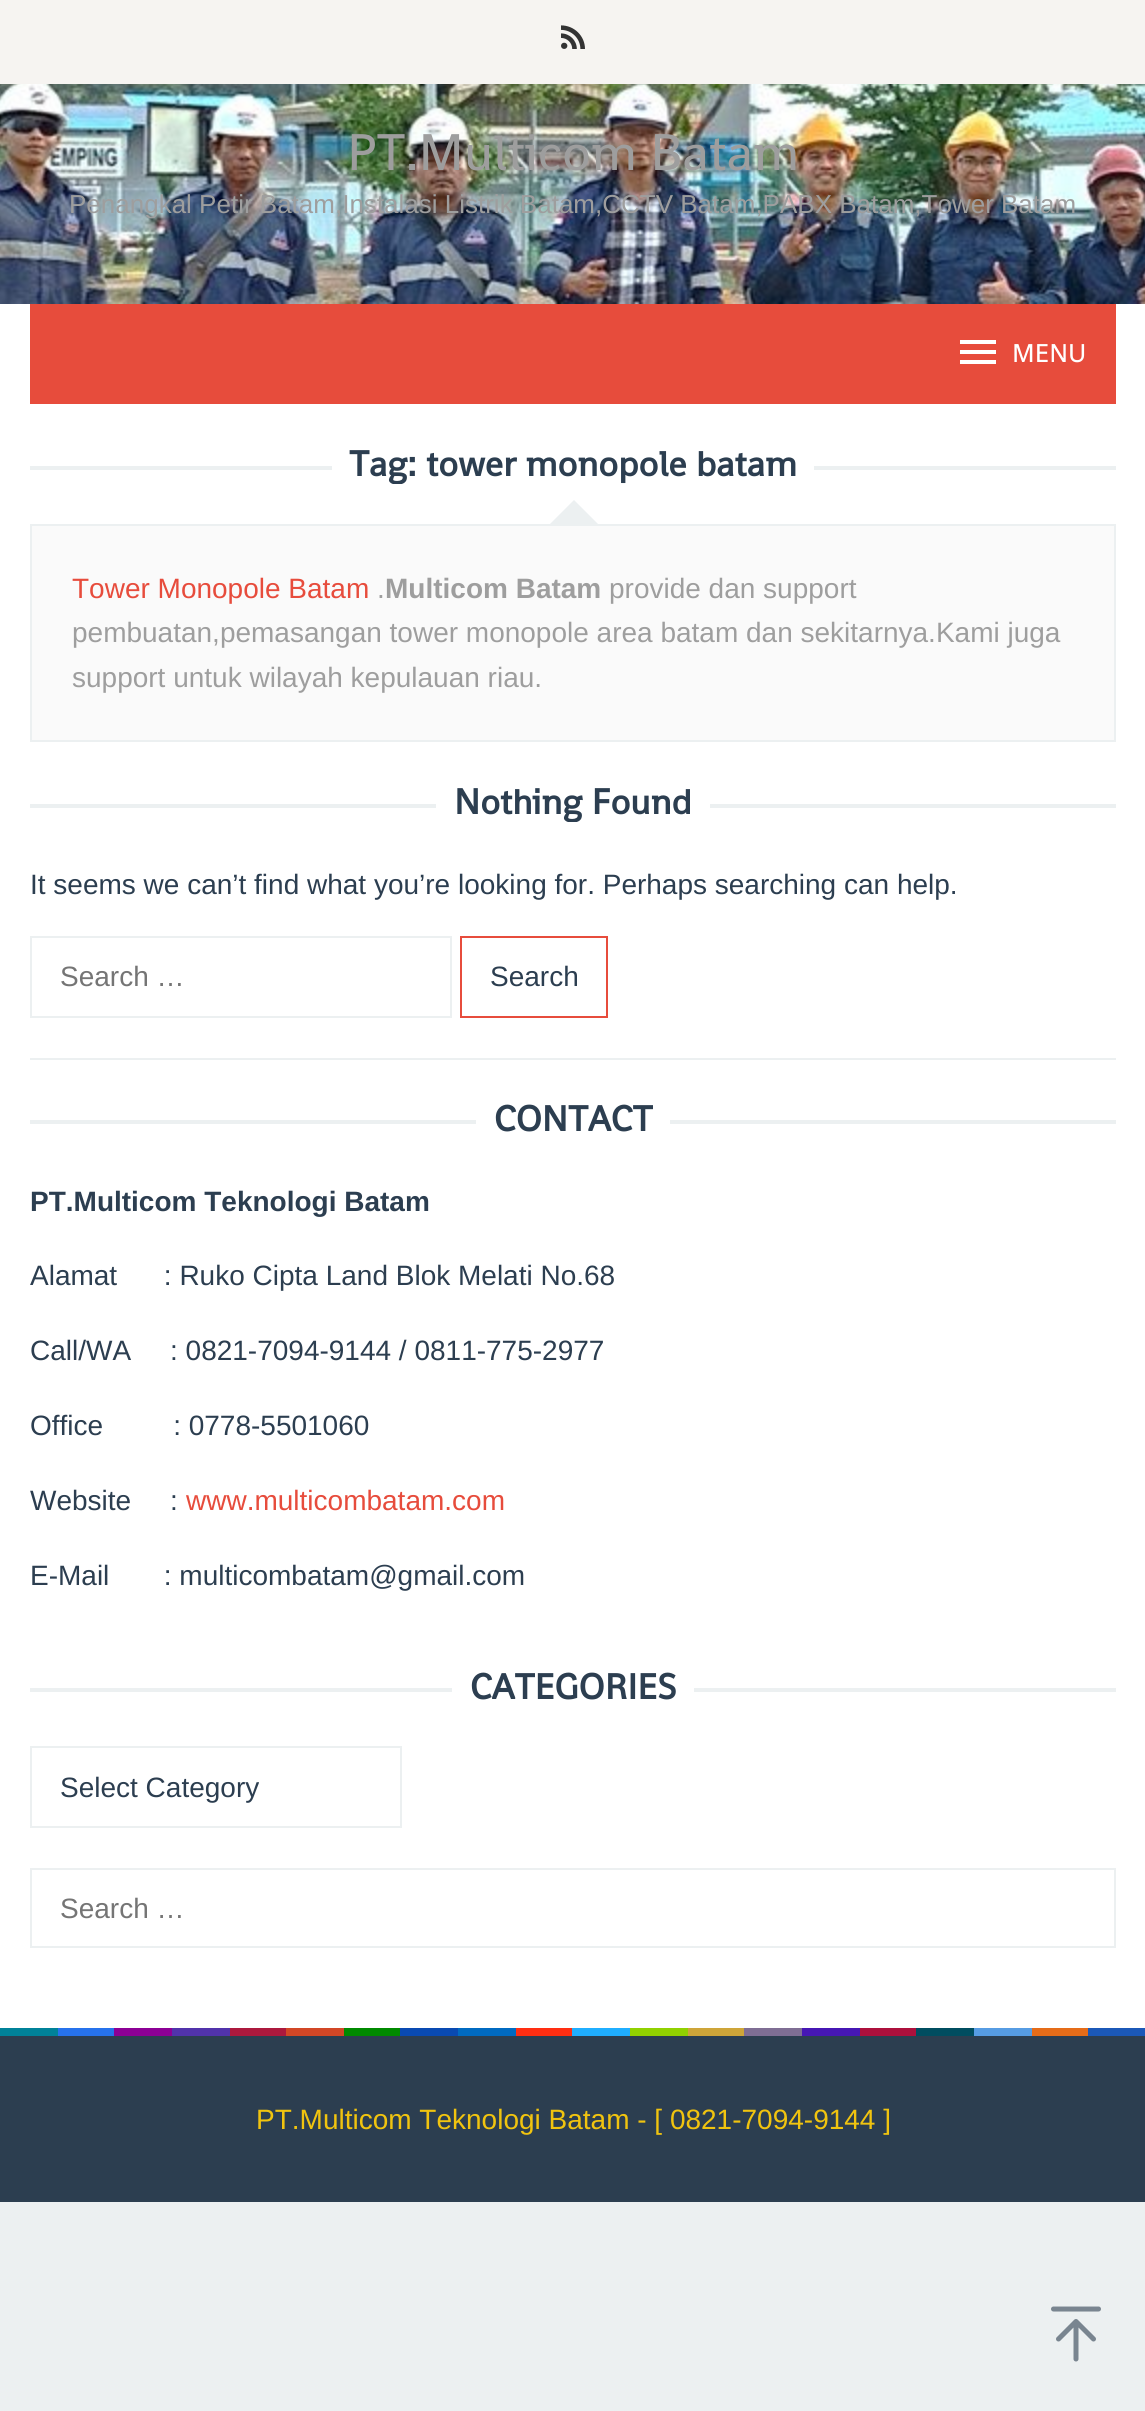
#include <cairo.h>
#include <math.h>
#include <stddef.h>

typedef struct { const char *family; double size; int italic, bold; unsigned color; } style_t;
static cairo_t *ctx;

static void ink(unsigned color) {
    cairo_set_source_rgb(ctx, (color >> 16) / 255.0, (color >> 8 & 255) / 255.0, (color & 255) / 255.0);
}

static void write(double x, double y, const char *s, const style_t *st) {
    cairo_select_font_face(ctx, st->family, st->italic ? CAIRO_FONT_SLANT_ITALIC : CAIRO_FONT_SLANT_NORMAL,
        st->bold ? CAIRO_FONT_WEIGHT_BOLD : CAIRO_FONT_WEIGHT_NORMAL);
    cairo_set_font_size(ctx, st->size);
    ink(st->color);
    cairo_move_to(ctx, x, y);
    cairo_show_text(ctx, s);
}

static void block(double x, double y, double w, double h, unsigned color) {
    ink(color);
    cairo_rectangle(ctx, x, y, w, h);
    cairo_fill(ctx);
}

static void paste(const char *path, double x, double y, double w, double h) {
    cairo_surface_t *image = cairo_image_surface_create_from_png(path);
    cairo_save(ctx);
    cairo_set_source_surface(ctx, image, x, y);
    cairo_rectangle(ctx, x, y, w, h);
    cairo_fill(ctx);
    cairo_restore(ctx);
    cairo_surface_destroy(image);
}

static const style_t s1 = {"Shanti", 52, 0, 0, 0x9e9e9e};
static const style_t s2 = {"Liberation Sans", 26, 0, 0, 0x9e9e9e};
static const style_t s3 = {"Shanti", 26, 0, 0, 0xffffff};
static const style_t s4 = {"Shanti", 36, 0, 1, 0x2c3e50};
static const style_t s5 = {"Liberation Sans", 28, 0, 0, 0xe74c3c};
static const style_t s6 = {"Liberation Sans", 28, 0, 0, 0x9e9e9e};
static const style_t s7 = {"Liberation Sans", 28, 0, 1, 0x9e9e9e};
static const style_t s8 = {"Liberation Sans", 28, 0, 0, 0x2c3e50};
static const style_t s9 = {"Liberation Sans", 28, 0, 0, 0x757575};
static const style_t s10 = {"Liberation Sans", 28, 0, 1, 0x2c3e50};
static const style_t s11 = {"Liberation Sans", 28, 0, 0, 0xf1c40f};

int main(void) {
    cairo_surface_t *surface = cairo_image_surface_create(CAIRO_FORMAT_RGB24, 1145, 2411);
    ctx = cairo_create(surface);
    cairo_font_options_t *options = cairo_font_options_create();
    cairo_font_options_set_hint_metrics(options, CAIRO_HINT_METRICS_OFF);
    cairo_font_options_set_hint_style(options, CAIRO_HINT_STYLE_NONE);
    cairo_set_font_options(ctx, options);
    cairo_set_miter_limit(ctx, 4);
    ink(0xecf0f1);
    cairo_paint(ctx);
    paste("pic1.png", 0, 84, 1145, 220);
    block(0, 0, 1145, 84, 0xf6f4f1);
    paste("pic2.png", 561, 25, 24, 24);
    write(347, 170, "PT.Multicom Batam", &s1);
    write(69, 213, "Penangkal Petir Batam,Instalasi Listrik Batam,CCTV Batam,PABX Batam,Tower Batam", &s2);
    block(0, 304, 1145, 1724, 0xffffff);
    block(30, 304, 1086, 100, 0xe74c3c);
    ink(0xffffff);
    cairo_new_path(ctx);
    cairo_move_to(ctx, 960, 364);
    cairo_line_to(ctx, 996, 364);
    cairo_line_to(ctx, 996, 360);
    cairo_line_to(ctx, 960, 360);
    cairo_close_path(ctx);
    cairo_move_to(ctx, 960, 354);
    cairo_line_to(ctx, 996, 354);
    cairo_line_to(ctx, 996, 350);
    cairo_line_to(ctx, 960, 350);
    cairo_close_path(ctx);
    cairo_move_to(ctx, 960, 340);
    cairo_line_to(ctx, 960, 344);
    cairo_line_to(ctx, 996, 344);
    cairo_line_to(ctx, 996, 340);
    cairo_close_path(ctx);
    cairo_fill(ctx);
    write(1012, 362, "MENU", &s3);
    block(30, 466, 302, 4, 0xecf0f1);
    cairo_save(ctx);
    cairo_rectangle(ctx, 30, 444, 1086, 40);
    cairo_clip(ctx);
    write(349, 476, "Tag:", &s4);
    cairo_restore(ctx);
    write(426, 476, "tower monopole batam", &s4);
    block(814, 466, 302, 4, 0xecf0f1);
    ink(0xfafafa);
    cairo_rectangle(ctx, 31, 525, 1084, 216);
    cairo_fill_preserve(ctx);
    ink(0xecf0f1);
    cairo_stroke(ctx);
    cairo_new_path(ctx);
    cairo_move_to(ctx, 600, 526);
    cairo_line_to(ctx, 548, 526);
    cairo_line_to(ctx, 574, 500);
    cairo_close_path(ctx);
    cairo_fill(ctx);
    write(72, 598, "Tower Monopole Batam", &s5);
    write(377, 598, ".", &s6);
    write(385, 598, "Multicom Batam", &s7);
    write(609, 598, "provide dan support", &s6);
    write(72, 642, "pembuatan,pemasangan tower monopole area batam dan sekitarnya.Kami juga", &s6);
    write(72, 687, "support untuk wilayah kepulauan riau.", &s6);
    block(30, 1058, 1086, 2, 0xecf0f1);
    block(30, 804, 406, 4, 0xecf0f1);
    cairo_save(ctx);
    cairo_rectangle(ctx, 30, 782, 1086, 40);
    cairo_clip(ctx);
    write(454, 814, "Nothing Found", &s4);
    cairo_restore(ctx);
    block(710, 804, 406, 4, 0xecf0f1);
    write(30, 894, "It seems we can’t find what you’re looking for. Perhaps searching can help.", &s8);
    cairo_rectangle(ctx, 31, 937, 420, 80);
    ink(0xecf0f1);
    cairo_stroke(ctx);
    write(60, 986, "Search …", &s9);
    cairo_rectangle(ctx, 461, 937, 146, 80);
    ink(0xe74c3c);
    cairo_stroke(ctx);
    write(490, 986, "Search", &s8);
    block(30, 1120, 446, 4, 0xecf0f1);
    write(494, 1131, "CONTACT", &s4);
    block(670, 1120, 446, 4, 0xecf0f1);
    write(30, 1211, "PT.Multicom Teknologi Batam", &s10);
    write(30, 1285, "Alamat      : Ruko Cipta Land Blok Melati No.68", &s8);
    write(30, 1360, "Call/WA     : 0821-7094-9144 / 0811-775-2977", &s8);
    write(30, 1435, "Office         : 0778-5501060", &s8);
    write(30, 1510, "Website     :", &s8);
    write(186, 1510, "www.multicombatam.com", &s5);
    write(30, 1585, "E-Mail       : multicombatam@gmail.com", &s8);
    block(30, 1688, 422, 4, 0xecf0f1);
    write(470, 1699, "CATEGORIES", &s4);
    block(694, 1688, 422, 4, 0xecf0f1);
    cairo_rectangle(ctx, 31, 1747, 370, 80);
    cairo_stroke(ctx);
    write(60, 1797, "Select Category", &s8);
    cairo_rectangle(ctx, 31, 1869, 1084, 78);
    ink(0xecf0f1);
    cairo_stroke(ctx);
    write(60, 1918, "Search …", &s9);
    block(0, 2028, 58, 8, 0x008299);
    block(58, 2028, 56, 8, 0x2672ec);
    block(114, 2028, 58, 8, 0x8c0095);
    block(172, 2028, 58, 8, 0x5133ab);
    block(230, 2028, 56, 8, 0xac193d);
    block(286, 2028, 58, 8, 0xd24726);
    block(344, 2028, 56, 8, 0x008a00);
    block(400, 2028, 58, 8, 0x094ab2);
    block(458, 2028, 58, 8, 0x006ac1);
    block(516, 2028, 56, 8, 0xff2e12);
    block(572, 2028, 58, 8, 0x1faeff);
    block(630, 2028, 58, 8, 0x91d100);
    block(688, 2028, 56, 8, 0xcea539);
    block(744, 2028, 58, 8, 0x7f6e94);
    block(802, 2028, 58, 8, 0x4617b4);
    block(860, 2028, 56, 8, 0xad103c);
    block(916, 2028, 58, 8, 0x004d60);
    block(974, 2028, 58, 8, 0x569ce3);
    block(1032, 2028, 56, 8, 0xe56c19);
    block(1088, 2028, 57, 8, 0x1b58b8);
    block(0, 2036, 1145, 166, 0x2c3e50);
    write(256, 2129, "PT.Multicom Teknologi Batam - [ 0821-7094-9144 ]", &s11);
    cairo_new_path(ctx);
    cairo_move_to(ctx, 1076, 2359);
    cairo_line_to(ctx, 1076, 2321.5);
    cairo_move_to(ctx, 1058.5, 2339);
    cairo_line_to(ctx, 1076, 2321.5);
    cairo_line_to(ctx, 1093.5, 2339);
    cairo_move_to(ctx, 1053.5, 2309);
    cairo_line_to(ctx, 1098.5, 2309);
    ink(0x798590);
    cairo_set_line_width(ctx, 5);
    cairo_set_line_cap(ctx, CAIRO_LINE_CAP_ROUND);
    cairo_set_line_join(ctx, CAIRO_LINE_JOIN_ROUND);
    cairo_stroke(ctx);
    cairo_surface_write_to_png(surface, "screenshot.png");
    cairo_font_options_destroy(options);
    cairo_destroy(ctx);
    cairo_surface_destroy(surface);
    return 0;
}
